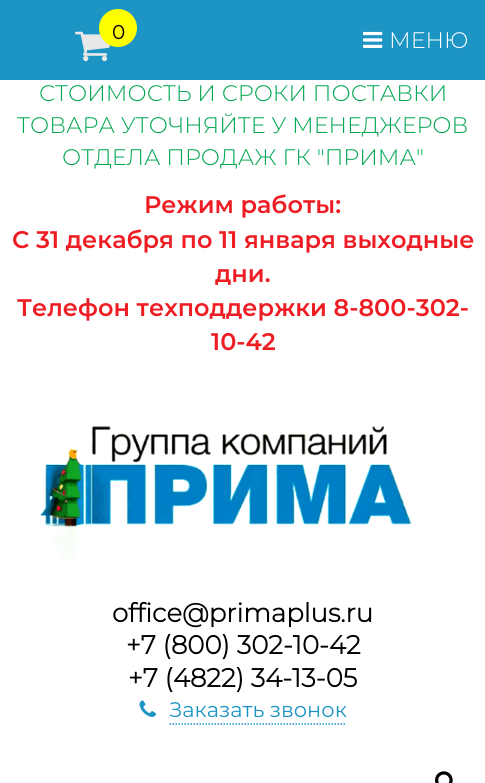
#include <cairo.h>
#include <math.h>
#include <stddef.h>

typedef struct { const char *family; double size; int italic, bold; unsigned color; } style_t;
static cairo_t *ctx;

static void ink(unsigned color) {
    cairo_set_source_rgb(ctx, (color >> 16) / 255.0, (color >> 8 & 255) / 255.0, (color & 255) / 255.0);
}

static void write(double x, double y, const char *s, const style_t *st) {
    cairo_select_font_face(ctx, st->family, st->italic ? CAIRO_FONT_SLANT_ITALIC : CAIRO_FONT_SLANT_NORMAL,
        st->bold ? CAIRO_FONT_WEIGHT_BOLD : CAIRO_FONT_WEIGHT_NORMAL);
    cairo_set_font_size(ctx, st->size);
    ink(st->color);
    cairo_move_to(ctx, x, y);
    cairo_show_text(ctx, s);
}

static void block(double x, double y, double w, double h, unsigned color) {
    ink(color);
    cairo_rectangle(ctx, x, y, w, h);
    cairo_fill(ctx);
}

static void paste(const char *path, double x, double y, double w, double h) {
    cairo_surface_t *image = cairo_image_surface_create_from_png(path);
    cairo_save(ctx);
    cairo_set_source_surface(ctx, image, x, y);
    cairo_rectangle(ctx, x, y, w, h);
    cairo_fill(ctx);
    cairo_restore(ctx);
    cairo_surface_destroy(image);
}

static const style_t s1 = {"Montserrat", 20, 0, 0, 0x000000};
static const style_t s2 = {"Montserrat Light", 22.5, 0, 0, 0xffffff};
static const style_t s3 = {"Montserrat Light", 22.5, 0, 0, 0x00a650};
static const style_t s4 = {"Montserrat SemiBold", 24, 0, 0, 0xee1d24};
static const style_t s5 = {"Montserrat", 26, 0, 1, 0x000000};
static const style_t s6 = {"Montserrat", 21, 0, 0, 0x1c94c4};

int main(void) {
    cairo_surface_t *surface = cairo_image_surface_create(CAIRO_FORMAT_RGB24, 485, 783);
    ctx = cairo_create(surface);
    cairo_font_options_t *options = cairo_font_options_create();
    cairo_font_options_set_hint_metrics(options, CAIRO_HINT_METRICS_OFF);
    cairo_font_options_set_hint_style(options, CAIRO_HINT_STYLE_NONE);
    cairo_set_font_options(ctx, options);
    cairo_set_miter_limit(ctx, 4);
    ink(0xffffff);
    cairo_paint(ctx);
    block(0, 0, 485, 80, 0x1c94c4);
    paste("pic1.png", 75, 31, 35, 31);
    ink(0xffff00);
    cairo_arc(ctx, 118, 28, 19, 0, 2 * M_PI);
    cairo_fill(ctx);
    write(112, 39, "0", &s1);
    paste("pic2.png", 363, 31, 20, 17);
    write(389, 48, "МЕНЮ", &s2);
    write(39, 101, "СТОИМОСТЬ И СРОКИ ПОСТАВКИ", &s3);
    write(17, 133, "ТОВАРА УТОЧНЯЙТЕ У МЕНЕДЖЕРОВ", &s3);
    write(62, 165, "ОТДЕЛА ПРОДАЖ ГК \"ПРИМА\"", &s3);
    write(144, 213, "Режим работы:", &s4);
    write(12, 248, "С 31 декабря по 11 января выходные", &s4);
    write(215, 282, "дни.", &s4);
    write(17, 316, "Телефон техподдержки 8-800-302-", &s4);
    write(211, 350, "10-42", &s4);
    paste("pic3.png", 36, 426, 375, 135);
    write(112, 622, "office@primaplus.ru", &s5);
    write(126, 654, "+7 (800) 302-10-42", &s5);
    write(128, 687, "+7 (4822) 34-13-05", &s5);
    paste("pic4.png", 139, 700, 17, 17);
    write(169, 717, "Заказать звонок", &s6);
    cairo_new_path(ctx);
    cairo_move_to(ctx, 169.5, 724);
    cairo_line_to(ctx, 346.5, 724);
    cairo_set_line_width(ctx, 1.5);
    cairo_set_dash(ctx, (double[]){1.5, 1.5}, 2, 0);
    cairo_stroke(ctx);
    paste("pic5.png", 435, 771, 18, 12);
    cairo_surface_write_to_png(surface, "screenshot.png");
    cairo_font_options_destroy(options);
    cairo_destroy(ctx);
    cairo_surface_destroy(surface);
    return 0;
}
